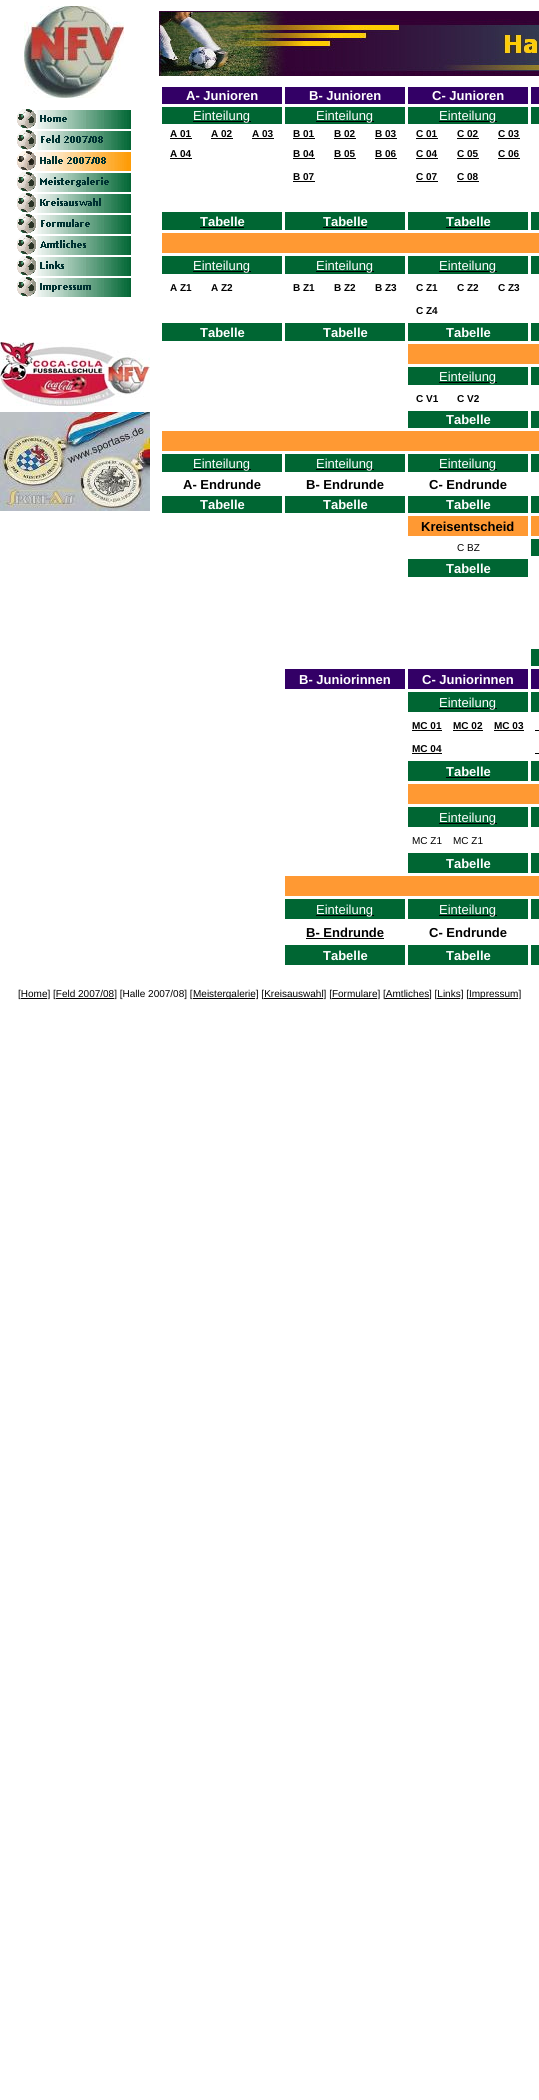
#include <cairo.h>
#include <math.h>
#include <stddef.h>

typedef struct { const char *family; double size; int italic, bold; unsigned color; } style_t;
static cairo_t *ctx;

static void ink(unsigned color) {
    cairo_set_source_rgb(ctx, (color >> 16) / 255.0, (color >> 8 & 255) / 255.0, (color & 255) / 255.0);
}

static void write(double x, double y, const char *s, const style_t *st) {
    cairo_select_font_face(ctx, st->family, st->italic ? CAIRO_FONT_SLANT_ITALIC : CAIRO_FONT_SLANT_NORMAL,
        st->bold ? CAIRO_FONT_WEIGHT_BOLD : CAIRO_FONT_WEIGHT_NORMAL);
    cairo_set_font_size(ctx, st->size);
    ink(st->color);
    cairo_move_to(ctx, x, y);
    cairo_show_text(ctx, s);
}

static void block(double x, double y, double w, double h, unsigned color) {
    ink(color);
    cairo_rectangle(ctx, x, y, w, h);
    cairo_fill(ctx);
}

static void paste(const char *path, double x, double y, double w, double h) {
    cairo_surface_t *image = cairo_image_surface_create_from_png(path);
    cairo_save(ctx);
    cairo_set_source_surface(ctx, image, x, y);
    cairo_rectangle(ctx, x, y, w, h);
    cairo_fill(ctx);
    cairo_restore(ctx);
    cairo_surface_destroy(image);
}

static const style_t s1 = {"Liberation Sans", 13, 0, 1, 0xffffff};
static const style_t s2 = {"Liberation Sans", 13, 0, 0, 0xffffff};
static const style_t s3 = {"Liberation Sans", 10, 0, 1, 0x000000};
static const style_t s4 = {"Liberation Sans", 13, 0, 1, 0x000000};
static const style_t s5 = {"Liberation Sans", 10, 0, 0, 0x000000};

int main(void) {
    cairo_surface_t *surface = cairo_image_surface_create(CAIRO_FORMAT_RGB24, 539, 2100);
    ctx = cairo_create(surface);
    cairo_font_options_t *options = cairo_font_options_create();
    cairo_font_options_set_hint_metrics(options, CAIRO_HINT_METRICS_OFF);
    cairo_font_options_set_hint_style(options, CAIRO_HINT_STYLE_NONE);
    cairo_set_font_options(ctx, options);
    cairo_set_miter_limit(ctx, 4);
    ink(0xffffff);
    cairo_paint(ctx);
    paste("pic1.png", 24, 6, 100, 92);
    paste("pic2.png", 17, 109, 114, 20);
    paste("pic3.png", 17, 130, 114, 20);
    paste("pic4.png", 16, 151, 115, 20);
    paste("pic5.png", 17, 172, 114, 20);
    paste("pic6.png", 17, 193, 114, 20);
    paste("pic7.png", 17, 214, 114, 20);
    paste("pic8.png", 17, 235, 114, 20);
    paste("pic9.png", 17, 256, 114, 20);
    paste("pic10.png", 17, 277, 114, 20);
    paste("pic11.png", 0, 342, 150, 64);
    paste("pic12.png", 0, 412, 150, 99);
    paste("pic13.png", 159, 11, 380, 65);
    block(162, 87, 120, 17, 0x330066);
    write(186, 100, "A- Junioren", &s1);
    block(285, 87, 120, 17, 0x330066);
    write(309, 100, "B- Junioren", &s1);
    block(408, 87, 120, 17, 0x330066);
    write(432, 100, "C- Junioren", &s1);
    block(531, 87, 8, 17, 0x330066);
    block(162, 107, 120, 17, 0x006633);
    block(193, 121, 58, 1, 0x000000);
    write(193, 120, "Einteilung", &s2);
    block(285, 107, 120, 17, 0x006633);
    block(316, 121, 58, 1, 0x000000);
    write(316, 120, "Einteilung", &s2);
    block(408, 107, 120, 17, 0x006633);
    block(439, 121, 58, 1, 0x000000);
    write(439, 120, "Einteilung", &s2);
    block(531, 107, 8, 17, 0x006633);
    write(170, 137, "A 01", &s3);
    block(170, 138, 22, 1, 0x000000);
    write(211, 137, "A 02", &s3);
    block(211, 138, 22, 1, 0x000000);
    write(252, 137, "A 03", &s3);
    block(252, 138, 22, 1, 0x000000);
    write(293, 137, "B 01", &s3);
    block(293, 138, 22, 1, 0x000000);
    write(334, 137, "B 02", &s3);
    block(334, 138, 22, 1, 0x000000);
    write(375, 137, "B 03", &s3);
    block(375, 138, 22, 1, 0x000000);
    write(416, 137, "C 01", &s3);
    block(416, 138, 22, 1, 0x000000);
    write(457, 137, "C 02", &s3);
    block(457, 138, 22, 1, 0x000000);
    write(498, 137, "C 03", &s3);
    block(498, 138, 22, 1, 0x000000);
    write(170, 157, "A 04", &s3);
    block(170, 158, 22, 1, 0x000000);
    write(293, 157, "B 04", &s3);
    block(293, 158, 22, 1, 0x000000);
    write(334, 157, "B 05", &s3);
    block(334, 158, 22, 1, 0x000000);
    write(375, 157, "B 06", &s3);
    block(375, 158, 22, 1, 0x000000);
    write(416, 157, "C 04", &s3);
    block(416, 158, 22, 1, 0x000000);
    write(457, 157, "C 05", &s3);
    block(457, 158, 22, 1, 0x000000);
    write(498, 157, "C 06", &s3);
    block(498, 158, 22, 1, 0x000000);
    write(293, 180, "B 07", &s3);
    block(293, 181, 22, 1, 0x000000);
    write(416, 180, "C 07", &s3);
    block(416, 181, 22, 1, 0x000000);
    write(457, 180, "C 08", &s3);
    block(457, 181, 22, 1, 0x000000);
    block(162, 212, 120, 18, 0x006633);
    write(200, 226, "Tabelle", &s1);
    block(200, 227, 44, 1, 0x000000);
    block(285, 212, 120, 18, 0x006633);
    write(323, 226, "Tabelle", &s1);
    block(323, 227, 44, 1, 0x000000);
    block(408, 212, 120, 18, 0x006633);
    write(446, 226, "Tabelle", &s1);
    block(446, 227, 44, 1, 0x000000);
    block(531, 212, 8, 18, 0x006633);
    block(162, 233, 377, 20, 0xff9933);
    block(162, 256, 120, 18, 0x006633);
    block(193, 271, 58, 1, 0x000000);
    write(193, 270, "Einteilung", &s2);
    block(285, 256, 120, 18, 0x006633);
    block(316, 271, 58, 1, 0x000000);
    write(316, 270, "Einteilung", &s2);
    block(408, 256, 120, 18, 0x006633);
    block(439, 271, 58, 1, 0x000000);
    write(439, 270, "Einteilung", &s2);
    block(531, 256, 8, 18, 0x006633);
    write(170, 291, "A Z1", &s3);
    write(211, 291, "A Z2", &s3);
    write(293, 291, "B Z1", &s3);
    write(334, 291, "B Z2", &s3);
    write(375, 291, "B Z3", &s3);
    write(416, 291, "C Z1", &s3);
    write(457, 291, "C Z2", &s3);
    write(498, 291, "C Z3", &s3);
    write(416, 314, "C Z4", &s3);
    block(162, 323, 120, 18, 0x006633);
    write(200, 337, "Tabelle", &s1);
    block(285, 323, 120, 18, 0x006633);
    write(323, 337, "Tabelle", &s1);
    block(408, 323, 120, 18, 0x006633);
    write(446, 337, "Tabelle", &s1);
    block(531, 323, 8, 18, 0x006633);
    block(408, 344, 131, 20, 0xff9933);
    block(408, 367, 120, 18, 0x006633);
    block(439, 382, 58, 1, 0x000000);
    write(439, 381, "Einteilung", &s2);
    block(531, 367, 8, 18, 0x006633);
    write(416, 402, "C V1", &s3);
    write(457, 402, "C V2", &s3);
    block(408, 411, 120, 17, 0x006633);
    write(446, 424, "Tabelle", &s1);
    block(531, 411, 8, 17, 0x006633);
    block(162, 431, 377, 20, 0xff9933);
    block(162, 454, 120, 18, 0x006633);
    block(193, 469, 58, 1, 0x000000);
    write(193, 468, "Einteilung", &s2);
    block(285, 454, 120, 18, 0x006633);
    block(316, 469, 58, 1, 0x000000);
    write(316, 468, "Einteilung", &s2);
    block(408, 454, 120, 18, 0x006633);
    block(439, 469, 58, 1, 0x000000);
    write(439, 468, "Einteilung", &s2);
    block(531, 454, 8, 18, 0x006633);
    write(183, 489, "A- Endrunde", &s4);
    write(306, 489, "B- Endrunde", &s4);
    write(429, 489, "C- Endrunde", &s4);
    block(162, 496, 120, 17, 0x006633);
    write(200, 509, "Tabelle", &s1);
    block(285, 496, 120, 17, 0x006633);
    write(323, 509, "Tabelle", &s1);
    block(408, 496, 120, 17, 0x006633);
    write(446, 509, "Tabelle", &s1);
    block(531, 496, 8, 17, 0x006633);
    block(408, 516, 120, 20, 0xff9933);
    write(421, 531, "Kreisentscheid", &s4);
    block(531, 516, 8, 20, 0xff9933);
    write(457, 551, "C BZ", &s5);
    block(531, 539, 8, 17, 0x006633);
    block(408, 559, 120, 18, 0x006633);
    write(446, 573, "Tabelle", &s1);
    block(531, 649, 8, 17, 0x006633);
    block(285, 669, 120, 20, 0x330066);
    write(299, 684, "B- Juniorinnen", &s1);
    block(408, 669, 120, 20, 0x330066);
    write(422, 684, "C- Juniorinnen", &s1);
    block(531, 669, 8, 20, 0x330066);
    block(408, 692, 120, 20, 0x006633);
    block(439, 708, 58, 1, 0x000000);
    write(439, 707, "Einteilung", &s2);
    block(531, 692, 8, 20, 0x006633);
    write(412, 729, "MC 01", &s3);
    block(412, 730, 30, 1, 0x000000);
    write(453, 729, "MC 02", &s3);
    block(453, 730, 30, 1, 0x000000);
    write(494, 729, "MC 03", &s3);
    block(494, 730, 30, 1, 0x000000);
    block(535, 730, 4, 1, 0x000000);
    write(412, 752, "MC 04", &s3);
    block(412, 753, 30, 1, 0x000000);
    block(535, 753, 4, 1, 0x000000);
    block(408, 761, 120, 20, 0x006633);
    write(446, 776, "Tabelle", &s1);
    block(446, 777, 44, 1, 0x000000);
    block(531, 761, 8, 20, 0x006633);
    block(408, 784, 131, 20, 0xff9933);
    block(408, 807, 120, 20, 0x006633);
    block(439, 823, 58, 1, 0x000000);
    write(439, 822, "Einteilung", &s2);
    block(531, 807, 8, 20, 0x006633);
    write(412, 844, "MC Z1", &s5);
    write(453, 844, "MC Z1", &s5);
    block(408, 853, 120, 20, 0x006633);
    write(446, 868, "Tabelle", &s1);
    block(531, 853, 8, 20, 0x006633);
    block(285, 876, 254, 20, 0xff9933);
    block(285, 899, 120, 20, 0x006633);
    block(316, 915, 58, 1, 0x000000);
    write(316, 914, "Einteilung", &s2);
    block(408, 899, 120, 20, 0x006633);
    block(439, 915, 58, 1, 0x000000);
    write(439, 914, "Einteilung", &s2);
    block(531, 899, 8, 20, 0x006633);
    write(306, 937, "B- Endrunde", &s4);
    block(306, 938, 78, 1, 0x000000);
    write(429, 937, "C- Endrunde", &s4);
    block(285, 945, 120, 20, 0x006633);
    write(323, 960, "Tabelle", &s1);
    block(408, 945, 120, 20, 0x006633);
    write(446, 960, "Tabelle", &s1);
    block(531, 945, 8, 20, 0x006633);
    write(18, 997, "[Home] [Feld 2007/08] [Halle 2007/08] [", &s5);
    block(193, 998, 62, 1, 0x000000);
    write(193, 997, "Meistergalerie] [Kreisauswahl] [Formulare] [Amtliches", &s5);
    block(385, 998, 44, 1, 0x000000);
    write(429, 997, "] [Links] [", &s5);
    block(469, 998, 49, 1, 0x000000);
    write(469, 997, "Impressum]", &s5);
    block(21, 998, 26, 1, 0x000000);
    block(56, 998, 58, 1, 0x000000);
    block(264, 998, 59, 1, 0x000000);
    block(332, 998, 45, 1, 0x000000);
    block(437, 998, 23, 1, 0x000000);
    cairo_surface_write_to_png(surface, "screenshot.png");
    cairo_font_options_destroy(options);
    cairo_destroy(ctx);
    cairo_surface_destroy(surface);
    return 0;
}
